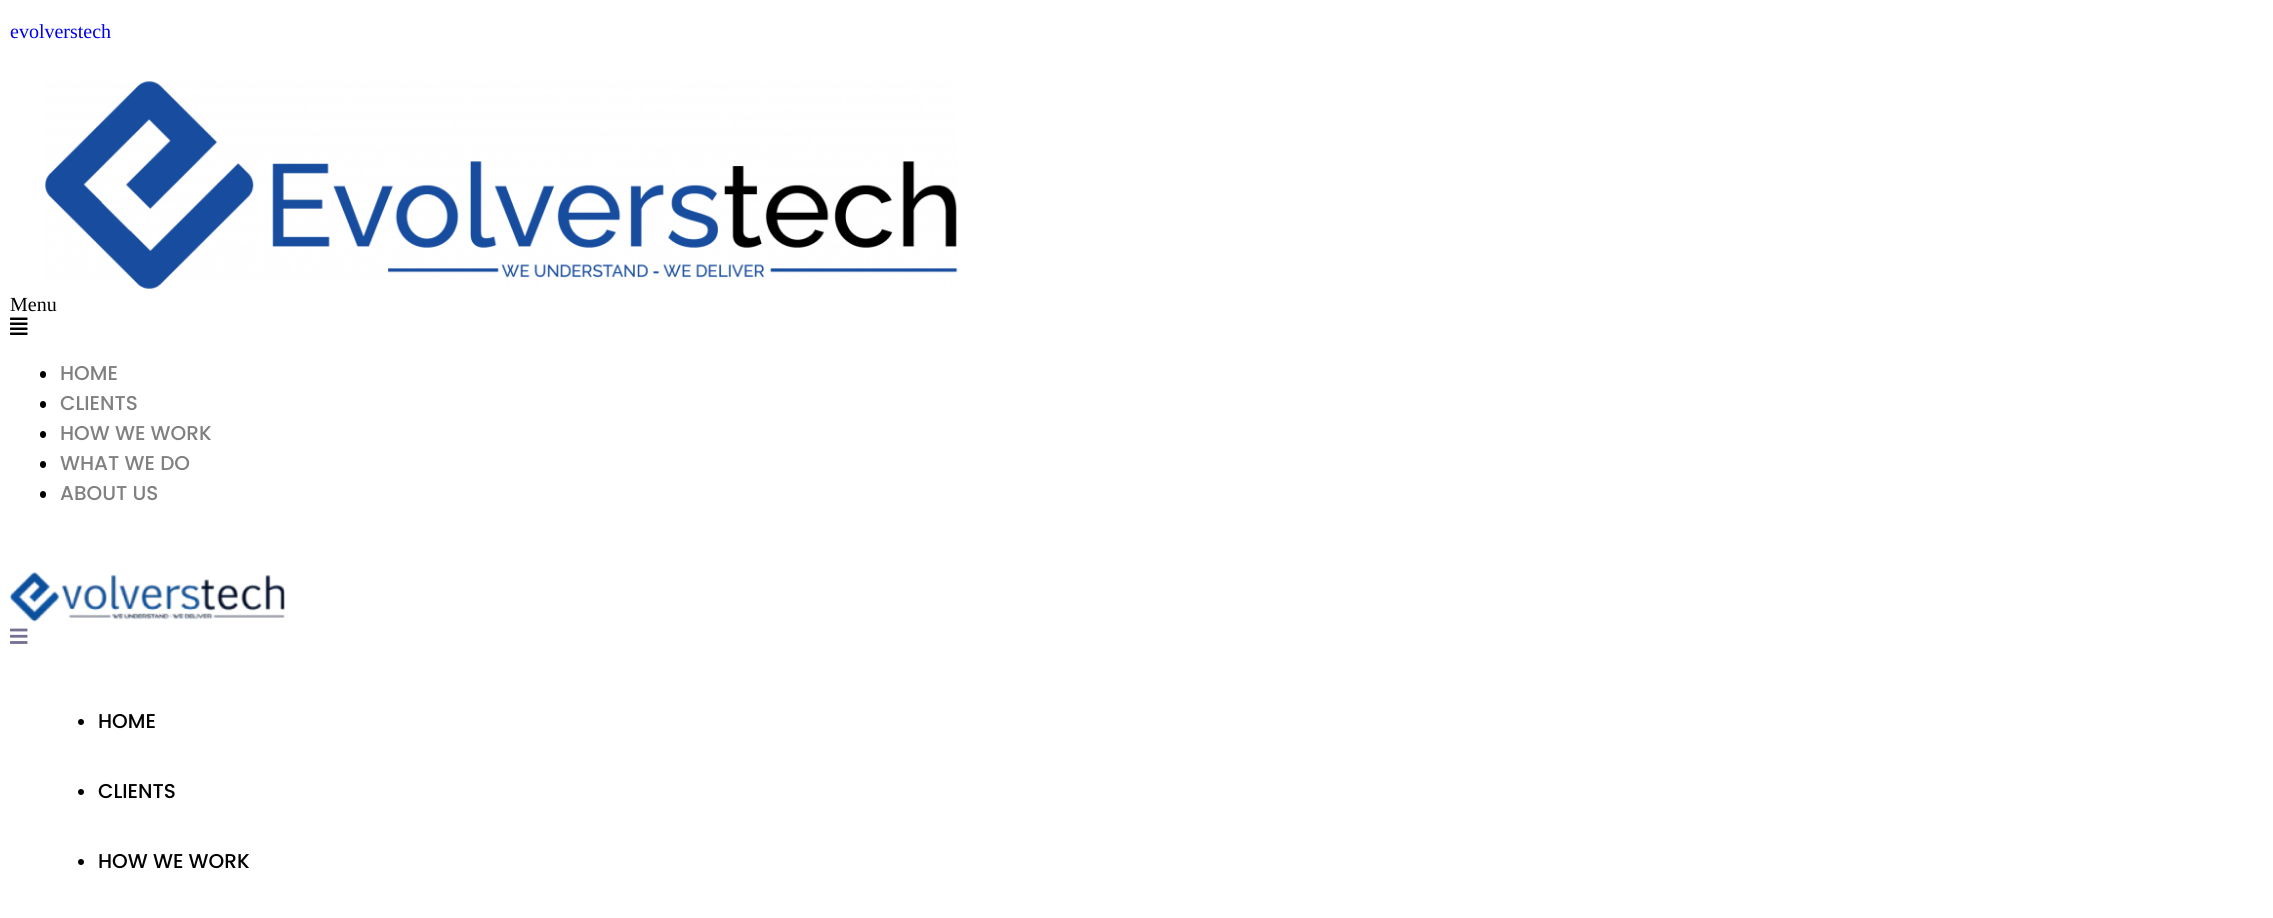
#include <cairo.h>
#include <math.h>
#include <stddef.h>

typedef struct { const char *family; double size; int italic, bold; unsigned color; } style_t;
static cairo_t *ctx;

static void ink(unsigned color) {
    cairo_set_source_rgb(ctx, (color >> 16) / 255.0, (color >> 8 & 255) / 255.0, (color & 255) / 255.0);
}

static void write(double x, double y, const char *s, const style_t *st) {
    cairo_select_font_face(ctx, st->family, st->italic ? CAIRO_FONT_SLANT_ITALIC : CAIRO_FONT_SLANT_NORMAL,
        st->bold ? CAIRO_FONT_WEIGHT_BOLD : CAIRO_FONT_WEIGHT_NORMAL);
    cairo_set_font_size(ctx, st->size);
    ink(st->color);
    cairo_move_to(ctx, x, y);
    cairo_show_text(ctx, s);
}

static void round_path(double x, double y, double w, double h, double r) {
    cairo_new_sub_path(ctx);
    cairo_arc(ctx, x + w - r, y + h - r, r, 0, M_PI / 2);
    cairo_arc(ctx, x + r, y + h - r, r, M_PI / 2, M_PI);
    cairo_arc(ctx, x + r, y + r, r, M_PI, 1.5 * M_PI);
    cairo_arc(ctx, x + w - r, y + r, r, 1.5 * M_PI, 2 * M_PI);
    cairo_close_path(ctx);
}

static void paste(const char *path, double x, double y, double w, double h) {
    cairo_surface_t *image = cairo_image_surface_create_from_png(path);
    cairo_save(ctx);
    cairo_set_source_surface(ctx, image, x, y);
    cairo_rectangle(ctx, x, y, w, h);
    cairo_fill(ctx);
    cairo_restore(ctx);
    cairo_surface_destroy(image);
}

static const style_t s1 = {"Liberation Serif", 20, 0, 0, 0x0000ee};
static const style_t s2 = {"Liberation Serif", 20, 0, 0, 0x000000};
static const style_t s3 = {"Poppins Medium", 20, 0, 0, 0x808080};
static const style_t s4 = {"Poppins Medium", 20, 0, 0, 0x000000};

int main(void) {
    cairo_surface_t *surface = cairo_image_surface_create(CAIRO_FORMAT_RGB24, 2273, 918);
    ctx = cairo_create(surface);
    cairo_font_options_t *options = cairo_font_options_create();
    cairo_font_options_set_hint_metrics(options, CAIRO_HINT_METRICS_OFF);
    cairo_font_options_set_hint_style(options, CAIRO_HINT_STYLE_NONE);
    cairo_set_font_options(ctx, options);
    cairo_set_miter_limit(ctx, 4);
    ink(0xffffff);
    cairo_paint(ctx);
    write(10, 38, "evolverstech", &s1);
    paste("pic1.png", 45, 81, 913, 208);
    write(10, 311, "Menu", &s2);
    paste("pic2.png", 10, 317, 18, 18);
    round_path(40, 371, 6, 7, 3);
    cairo_fill(ctx);
    write(60, 380, "HOME", &s3);
    ink(0x000000);
    round_path(40, 401, 6, 7, 3);
    cairo_fill(ctx);
    write(60, 410, "CLIENTS", &s3);
    ink(0x000000);
    round_path(40, 431, 6, 7, 3);
    cairo_fill(ctx);
    write(60, 440, "HOW WE WORK", &s3);
    ink(0x000000);
    round_path(40, 461, 6, 7, 3);
    cairo_fill(ctx);
    write(60, 470, "WHAT WE DO", &s3);
    ink(0x000000);
    round_path(40, 491, 6, 7, 3);
    cairo_fill(ctx);
    write(60, 500, "ABOUT US", &s3);
    paste("pic3.png", 10, 572, 275, 50);
    paste("pic4.png", 10, 628, 18, 16);
    ink(0x000000);
    cairo_arc(ctx, 81, 722, 3, 0, 2 * M_PI);
    cairo_fill(ctx);
    write(98, 728, "HOME", &s4);
    cairo_new_path(ctx);
    cairo_arc(ctx, 81, 792, 3, 0, 2 * M_PI);
    cairo_fill(ctx);
    write(98, 798, "CLIENTS", &s4);
    cairo_new_path(ctx);
    cairo_arc(ctx, 81, 862, 3, 0, 2 * M_PI);
    cairo_fill(ctx);
    write(98, 868, "HOW WE WORK", &s4);
    cairo_surface_write_to_png(surface, "screenshot.png");
    cairo_font_options_destroy(options);
    cairo_destroy(ctx);
    cairo_surface_destroy(surface);
    return 0;
}
